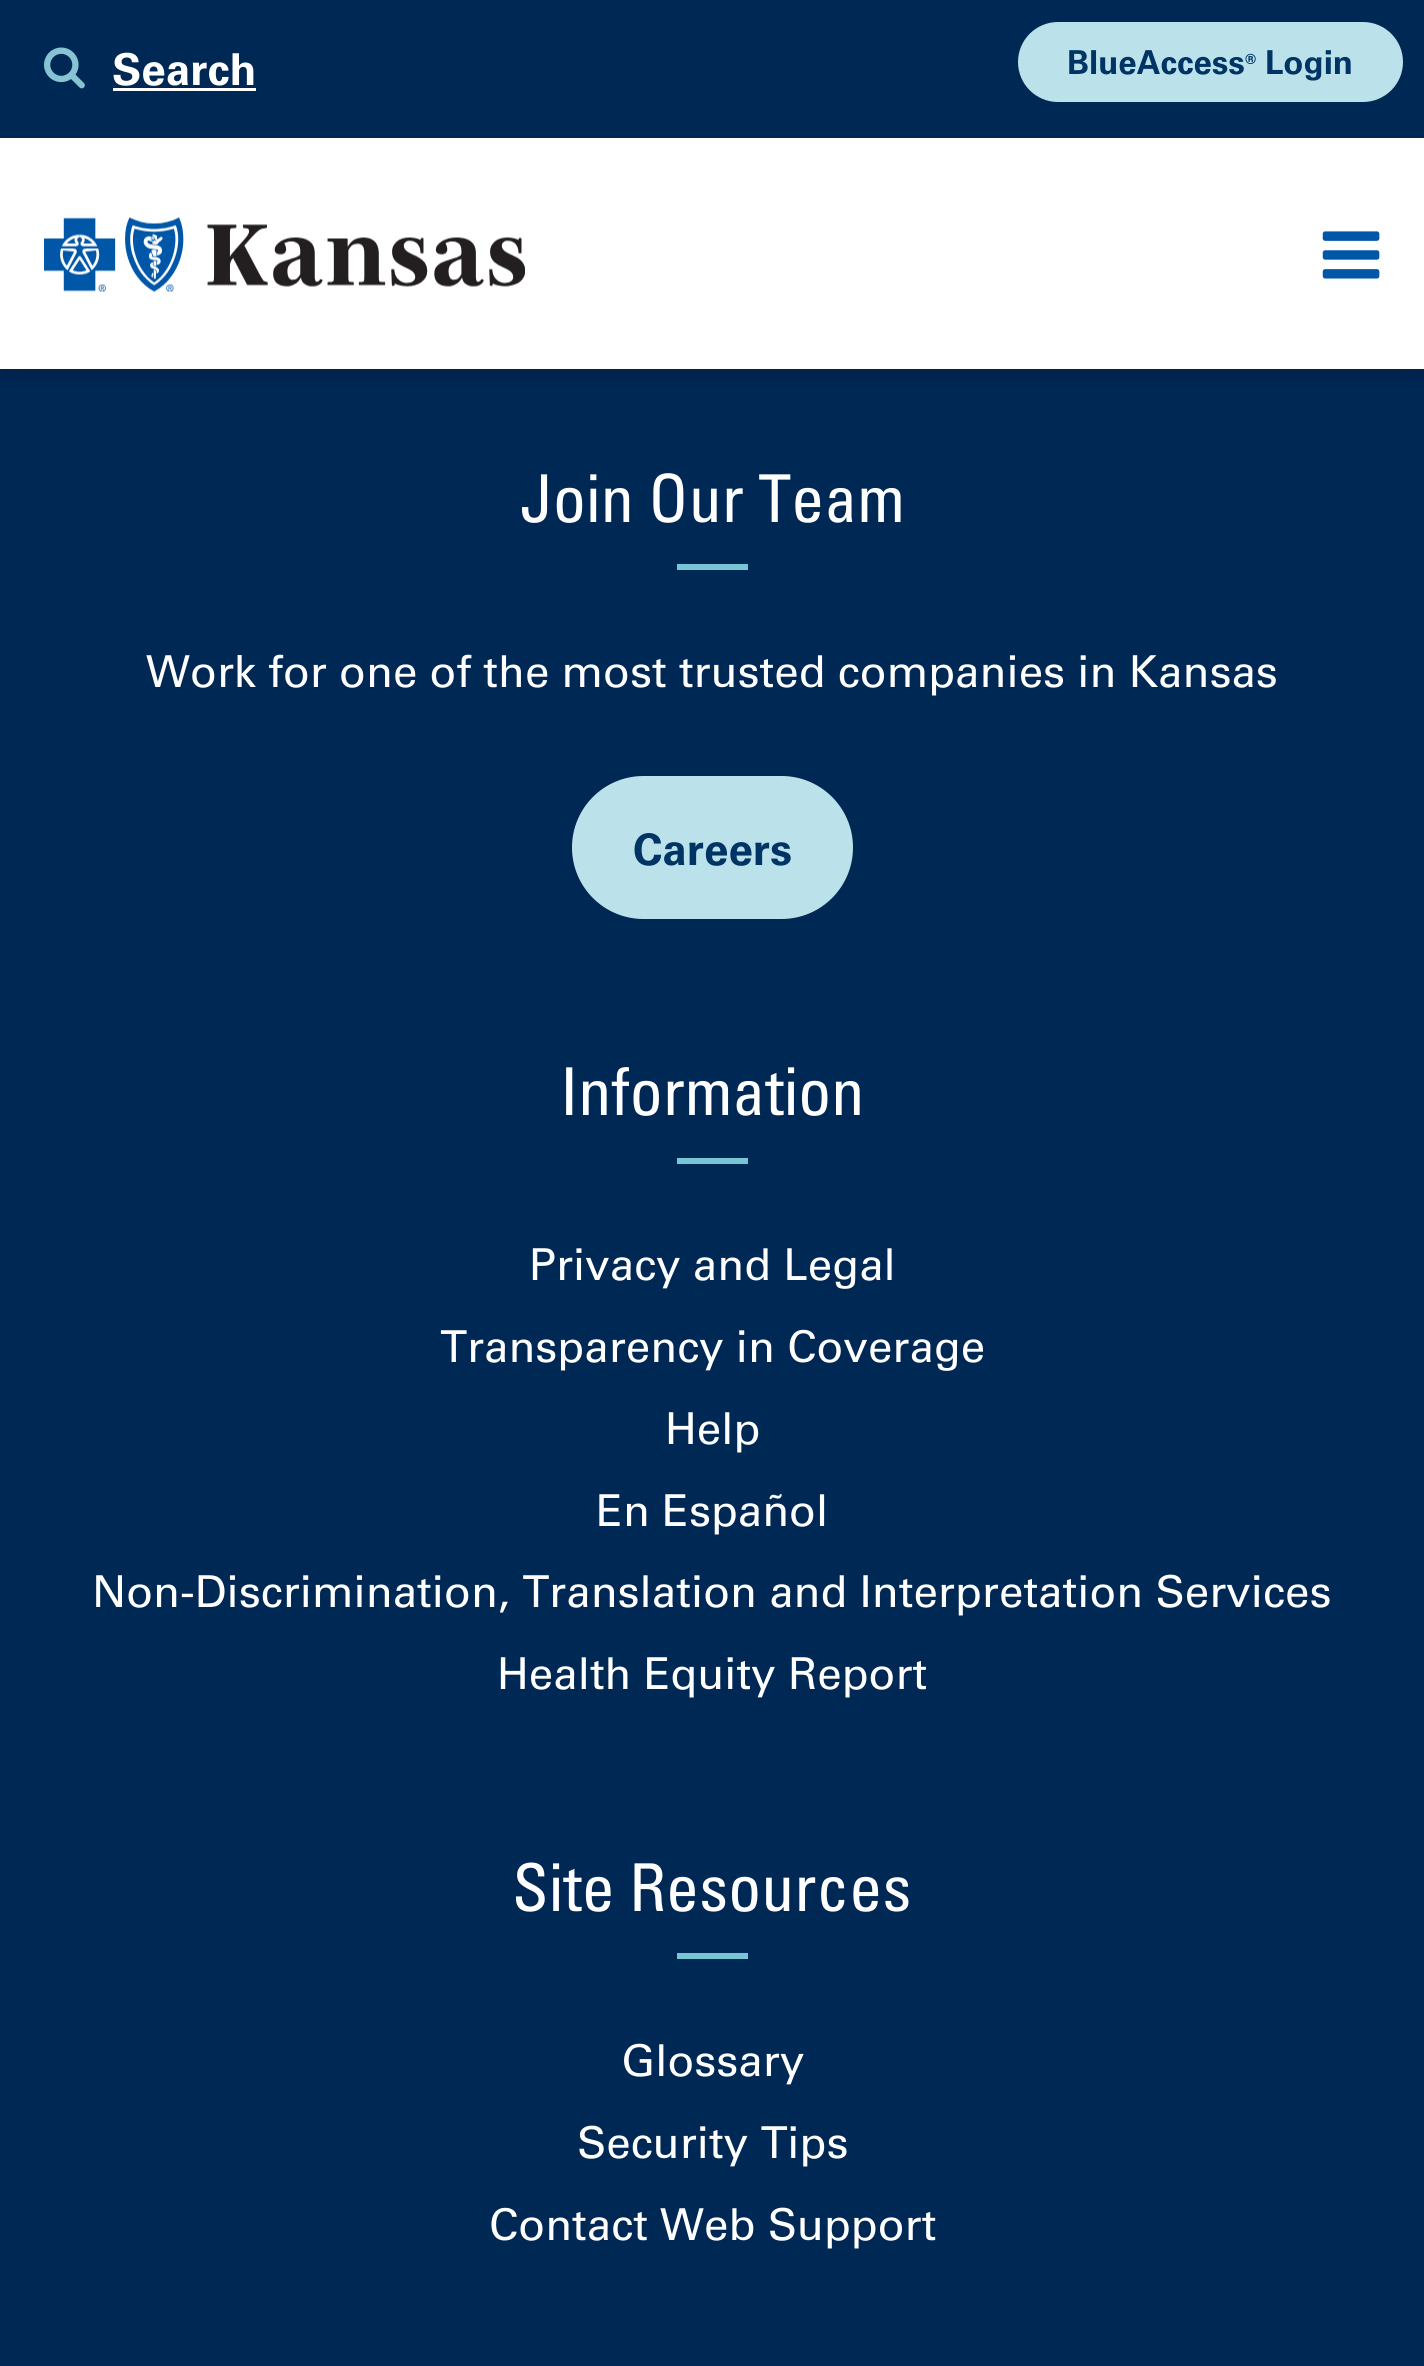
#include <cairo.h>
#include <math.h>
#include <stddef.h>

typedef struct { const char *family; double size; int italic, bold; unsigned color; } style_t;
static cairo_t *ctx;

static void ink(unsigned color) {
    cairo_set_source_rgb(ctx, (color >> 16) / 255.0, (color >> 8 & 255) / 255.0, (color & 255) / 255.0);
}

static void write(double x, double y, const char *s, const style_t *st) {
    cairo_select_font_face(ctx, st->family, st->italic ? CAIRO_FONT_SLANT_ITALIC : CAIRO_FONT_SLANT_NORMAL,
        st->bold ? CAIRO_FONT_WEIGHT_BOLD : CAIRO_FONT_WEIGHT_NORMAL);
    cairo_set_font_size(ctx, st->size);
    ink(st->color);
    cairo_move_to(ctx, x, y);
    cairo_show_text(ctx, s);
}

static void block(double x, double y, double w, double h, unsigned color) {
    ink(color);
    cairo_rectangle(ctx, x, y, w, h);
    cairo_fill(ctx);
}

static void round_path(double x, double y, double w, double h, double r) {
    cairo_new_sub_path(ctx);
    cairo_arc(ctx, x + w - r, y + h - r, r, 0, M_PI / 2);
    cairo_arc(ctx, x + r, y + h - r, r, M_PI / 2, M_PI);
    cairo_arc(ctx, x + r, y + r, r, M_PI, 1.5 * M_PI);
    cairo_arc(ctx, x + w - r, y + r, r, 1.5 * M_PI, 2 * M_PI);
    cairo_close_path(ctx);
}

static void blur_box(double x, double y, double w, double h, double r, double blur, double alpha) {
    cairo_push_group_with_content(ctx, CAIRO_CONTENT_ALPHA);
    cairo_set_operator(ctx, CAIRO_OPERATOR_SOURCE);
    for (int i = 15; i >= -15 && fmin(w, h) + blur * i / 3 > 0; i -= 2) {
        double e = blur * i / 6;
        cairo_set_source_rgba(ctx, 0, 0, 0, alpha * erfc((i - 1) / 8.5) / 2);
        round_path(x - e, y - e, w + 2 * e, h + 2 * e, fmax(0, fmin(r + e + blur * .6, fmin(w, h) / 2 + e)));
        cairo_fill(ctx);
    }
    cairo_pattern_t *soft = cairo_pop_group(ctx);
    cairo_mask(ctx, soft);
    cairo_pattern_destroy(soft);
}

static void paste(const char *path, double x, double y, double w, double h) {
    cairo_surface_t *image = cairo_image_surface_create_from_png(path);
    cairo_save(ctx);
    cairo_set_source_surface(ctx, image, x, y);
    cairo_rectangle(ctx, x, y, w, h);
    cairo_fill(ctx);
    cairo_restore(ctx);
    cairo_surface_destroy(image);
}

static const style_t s1 = {"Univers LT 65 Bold", 44, 0, 1, 0xffffff};
static const style_t s2 = {"Univers LT 65 Bold", 33, 0, 1, 0x003465};
static const style_t s3 = {"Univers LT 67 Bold", 28, 0, 1, 0x003465};
static const style_t s4 = {"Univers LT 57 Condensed", 66, 0, 0, 0xffffff};
static const style_t s5 = {"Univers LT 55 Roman", 44, 0, 0, 0xffffff};
static const style_t s6 = {"Univers LT 65 Bold", 44, 0, 1, 0x003465};

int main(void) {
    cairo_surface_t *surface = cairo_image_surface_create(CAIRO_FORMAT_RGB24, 1424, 2366);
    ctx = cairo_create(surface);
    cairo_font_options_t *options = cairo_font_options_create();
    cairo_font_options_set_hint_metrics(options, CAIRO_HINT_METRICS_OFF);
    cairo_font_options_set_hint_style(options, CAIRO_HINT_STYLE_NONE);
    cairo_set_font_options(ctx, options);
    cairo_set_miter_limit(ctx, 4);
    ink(0x002855);
    cairo_paint(ctx);
    paste("pic1.png", 44, 47, 41, 42);
    write(112, 85, "Search", &s1);
    block(113, 88, 143, 3, 0xffffff);
    ink(0xbbe2ea);
    round_path(1021, 25, 379, 74, 37);
    cairo_fill_preserve(ctx);
    cairo_set_line_width(ctx, 6);
    cairo_stroke(ctx);
    write(1067, 74, "BlueAccess", &s2);
    write(1245, 74, "®", &s3);
    write(1265, 74, "Login", &s2);
    ink(0x000000);
    blur_box(0, 146, 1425, 231, 0, 8, 0.16);
    block(0, 138, 1424, 231, 0xffffff);
    paste("pic2.png", 44, 217, 481, 75);
    paste("pic3.png", 1322, 231, 58, 48);
    write(520, 522, "Join Our Team", &s4);
    block(677, 564, 71, 6, 0x77c5d5);
    write(146, 687, "Work for one of the most trusted companies in Kansas", &s5);
    ink(0xbbe2ea);
    round_path(575, 779, 275, 137, 68.5);
    cairo_fill_preserve(ctx);
    cairo_stroke(ctx);
    write(633, 865, "Careers", &s6);
    write(560, 1115, "Information", &s4);
    block(677, 1158, 71, 6, 0x77c5d5);
    write(529, 1280, "Privacy and Legal", &s5);
    write(440, 1362, "Transparency in Coverage", &s5);
    write(665, 1444, "Help", &s5);
    write(596, 1526, "En Español", &s5);
    write(92, 1607, "Non-Discrimination, Translation and Interpretation Services", &s5);
    write(497, 1689, "Health Equity Report", &s5);
    write(512, 1911, "Site Resources", &s4);
    block(677, 1953, 71, 6, 0x77c5d5);
    write(621, 2076, "Glossary", &s5);
    write(577, 2158, "Security Tips", &s5);
    write(489, 2240, "Contact Web Support", &s5);
    cairo_surface_write_to_png(surface, "screenshot.png");
    cairo_font_options_destroy(options);
    cairo_destroy(ctx);
    cairo_surface_destroy(surface);
    return 0;
}
